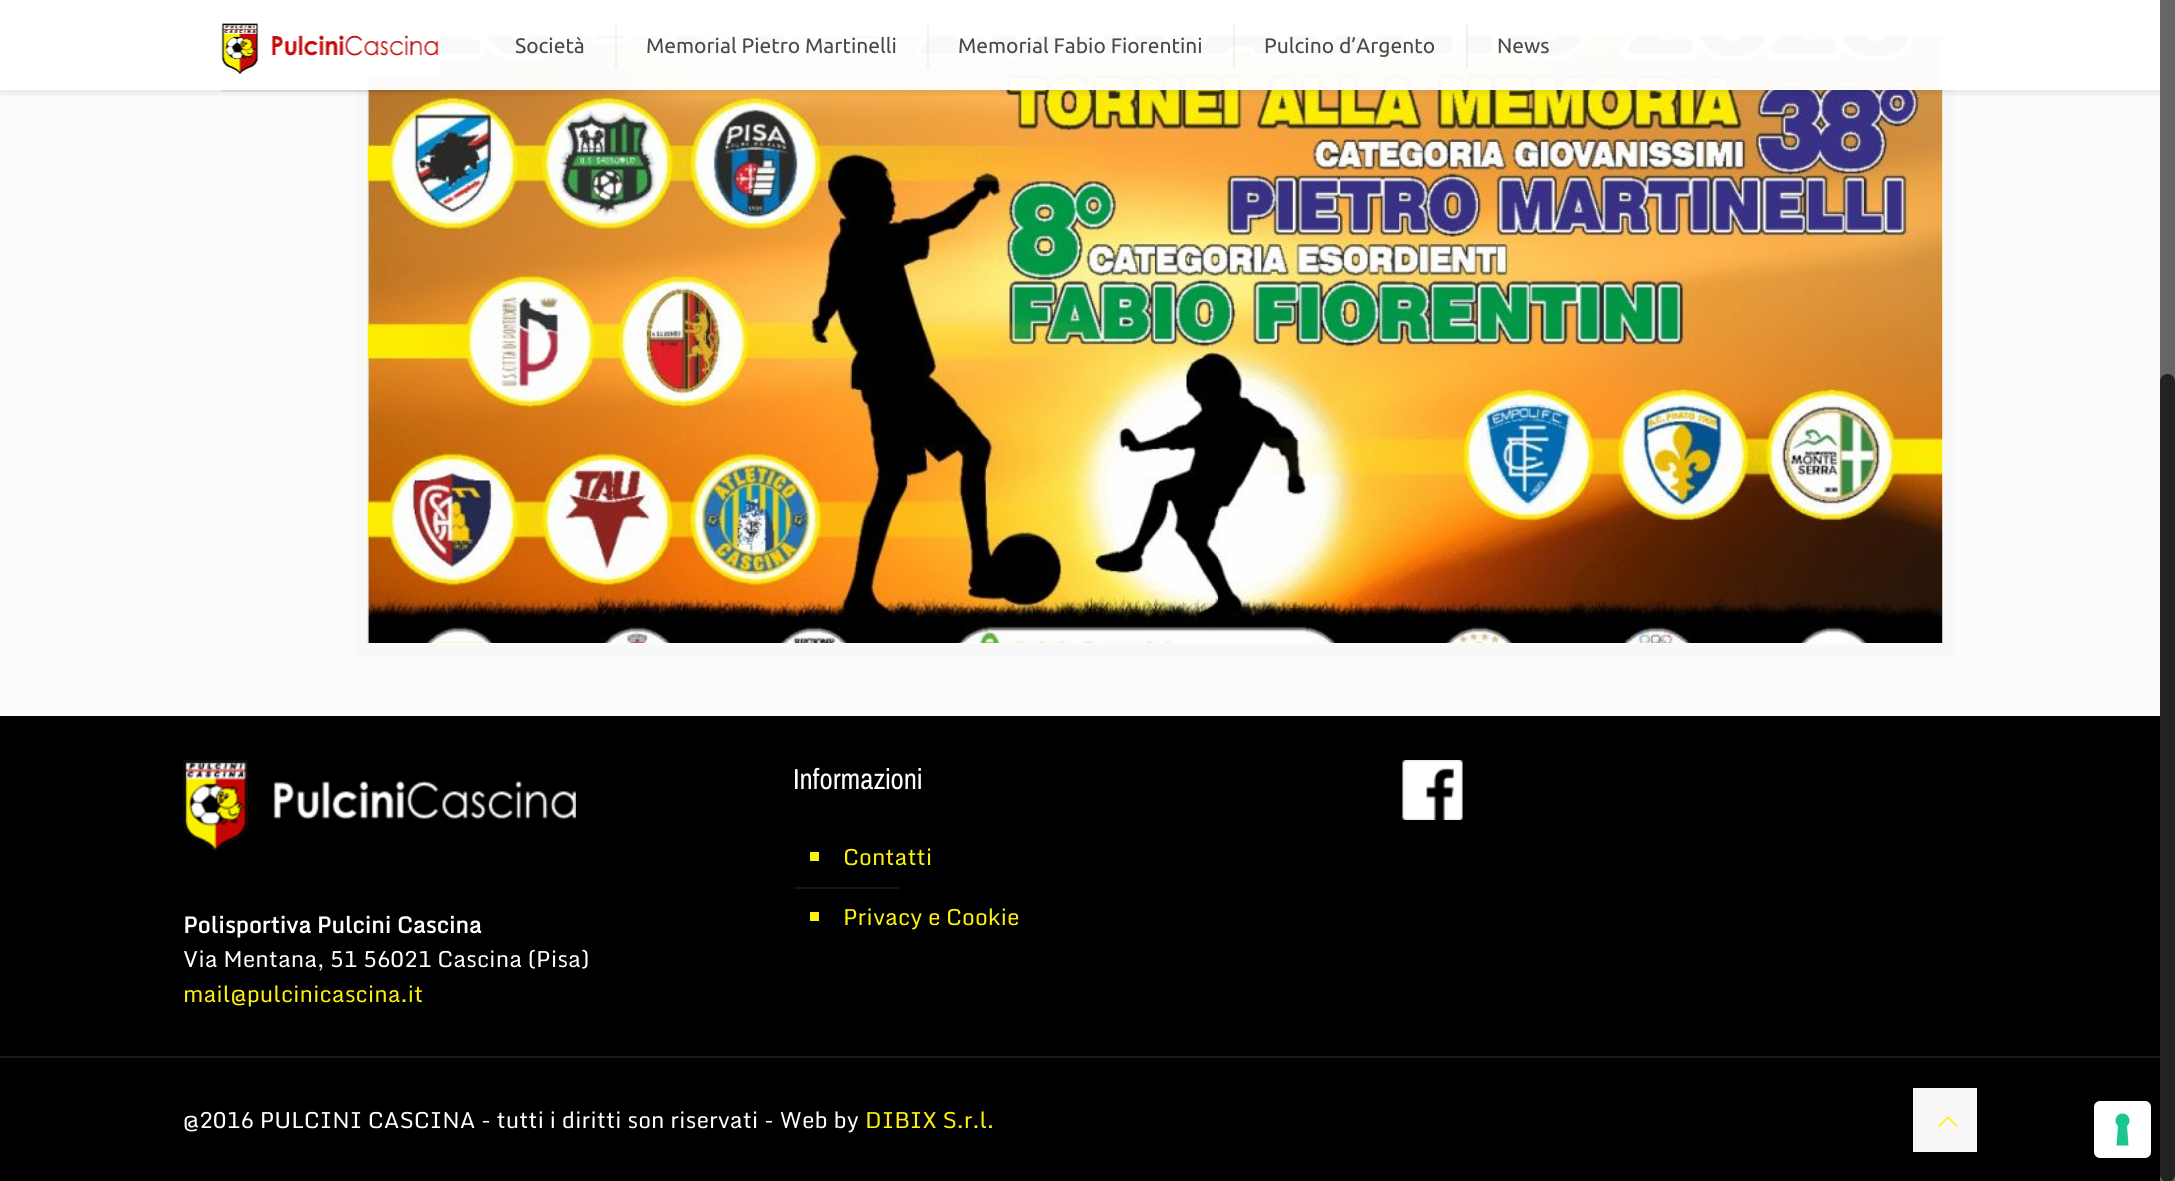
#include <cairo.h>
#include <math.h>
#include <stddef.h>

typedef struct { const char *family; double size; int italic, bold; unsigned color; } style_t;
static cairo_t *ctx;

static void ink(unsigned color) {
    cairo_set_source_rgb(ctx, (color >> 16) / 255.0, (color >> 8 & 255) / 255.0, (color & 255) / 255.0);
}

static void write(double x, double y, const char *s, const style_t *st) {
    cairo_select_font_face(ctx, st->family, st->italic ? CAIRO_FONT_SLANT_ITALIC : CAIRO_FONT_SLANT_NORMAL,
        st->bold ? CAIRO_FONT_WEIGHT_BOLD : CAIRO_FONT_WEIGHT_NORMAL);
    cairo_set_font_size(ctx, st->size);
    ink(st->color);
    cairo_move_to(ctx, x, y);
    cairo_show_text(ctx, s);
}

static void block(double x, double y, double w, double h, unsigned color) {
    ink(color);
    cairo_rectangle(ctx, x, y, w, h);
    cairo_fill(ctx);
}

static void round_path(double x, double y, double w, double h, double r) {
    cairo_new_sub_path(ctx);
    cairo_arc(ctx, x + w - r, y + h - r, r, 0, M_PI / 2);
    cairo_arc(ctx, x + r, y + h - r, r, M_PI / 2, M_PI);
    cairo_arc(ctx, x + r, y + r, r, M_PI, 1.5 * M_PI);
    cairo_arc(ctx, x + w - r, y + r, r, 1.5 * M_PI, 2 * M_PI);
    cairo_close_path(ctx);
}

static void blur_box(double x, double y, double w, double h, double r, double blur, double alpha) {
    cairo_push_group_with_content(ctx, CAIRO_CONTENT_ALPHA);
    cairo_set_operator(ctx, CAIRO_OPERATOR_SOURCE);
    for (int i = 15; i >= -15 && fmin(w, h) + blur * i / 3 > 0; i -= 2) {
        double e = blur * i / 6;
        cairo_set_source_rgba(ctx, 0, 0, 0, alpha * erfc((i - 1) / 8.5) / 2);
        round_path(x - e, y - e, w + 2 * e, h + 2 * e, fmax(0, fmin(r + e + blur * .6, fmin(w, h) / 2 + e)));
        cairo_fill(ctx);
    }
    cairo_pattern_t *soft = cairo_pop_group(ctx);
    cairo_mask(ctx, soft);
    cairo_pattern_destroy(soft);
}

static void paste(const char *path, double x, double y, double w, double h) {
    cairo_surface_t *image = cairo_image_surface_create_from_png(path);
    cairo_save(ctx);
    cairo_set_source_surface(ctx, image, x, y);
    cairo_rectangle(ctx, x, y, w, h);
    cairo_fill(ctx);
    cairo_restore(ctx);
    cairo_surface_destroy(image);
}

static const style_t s1 = {"Ubuntu", 21, 0, 0, 0x4a4949};
static const style_t s2 = {"Pragati Narrow", 31.5, 0, 0, 0xffffff};
static const style_t s3 = {"Monda", 22.5, 0, 0, 0xfef20d};
static const style_t s4 = {"Monda", 22.5, 0, 1, 0xffffff};
static const style_t s5 = {"Monda", 22.5, 0, 0, 0xffffff};

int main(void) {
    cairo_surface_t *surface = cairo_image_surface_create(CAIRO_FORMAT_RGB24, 2175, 1181);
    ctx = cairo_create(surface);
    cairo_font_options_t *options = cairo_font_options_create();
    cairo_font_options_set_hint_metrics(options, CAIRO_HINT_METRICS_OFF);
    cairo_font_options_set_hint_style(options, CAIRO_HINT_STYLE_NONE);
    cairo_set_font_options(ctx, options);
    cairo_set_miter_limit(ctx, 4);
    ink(0xfcfcfc);
    cairo_paint(ctx);
    ink(0xffffff);
    cairo_rectangle(ctx, 184, 25, 148, 24);
    cairo_fill_preserve(ctx);
    ink(0xebebeb);
    cairo_stroke(ctx);
    cairo_rectangle(ctx, 362, 30, 1587, 620);
    ink(0xf8f8f8);
    cairo_set_line_width(ctx, 12);
    cairo_stroke(ctx);
    paste("pic1.png", 367, 35, 1576, 608);
    cairo_save(ctx);
    cairo_rectangle(ctx, 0, 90, 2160, 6);
    cairo_clip(ctx);
    ink(0x000000);
    blur_box(0, 3, 2175, 90, 0, 4, 0.1);
    cairo_restore(ctx);
    cairo_set_source_rgba(ctx, 1, 1, 1, 0.97);
    cairo_rectangle(ctx, 0, 0, 2160, 90);
    cairo_fill(ctx);
    cairo_set_source_rgba(ctx, 0, 0, 0, 0.08);
    cairo_rectangle(ctx, 221, 90, 219, 2);
    cairo_fill(ctx);
    paste("pic2.png", 221, 23, 218, 52);
    cairo_set_source_rgba(ctx, 0, 0, 0, 0.05);
    cairo_rectangle(ctx, 615, 23, 2, 45);
    cairo_fill(ctx);
    write(515, 53, "Società", &s1);
    cairo_set_source_rgba(ctx, 0, 0, 0, 0.05);
    cairo_rectangle(ctx, 927, 23, 2, 45);
    cairo_fill(ctx);
    write(646, 53, "Memorial Pietro Martinelli", &s1);
    cairo_set_source_rgba(ctx, 0, 0, 0, 0.05);
    cairo_rectangle(ctx, 1233, 23, 2, 45);
    cairo_fill(ctx);
    write(958, 53, "Memorial Fabio Fiorentini", &s1);
    cairo_set_source_rgba(ctx, 0, 0, 0, 0.05);
    cairo_rectangle(ctx, 1466, 23, 2, 45);
    cairo_fill(ctx);
    write(1264, 53, "Pulcino d’Argento", &s1);
    write(1497, 53, "News", &s1);
    block(0, 716, 2160, 465, 0x000000);
    write(793, 789, "Informazioni", &s2);
    block(810, 852, 9, 9, 0xfef20d);
    write(843, 865, "Contatti", &s3);
    block(794, 887, 105, 2, 0x141414);
    block(810, 912, 9, 9, 0xfef20d);
    write(843, 925, "Privacy e Cookie", &s3);
    paste("pic3.png", 1402, 760, 61, 60);
    paste("pic4.png", 183, 760, 393, 92);
    write(183, 933, "Polisportiva Pulcini Cascina", &s4);
    write(183, 967, "Via Mentana, 51 56021 Cascina (Pisa)", &s5);
    write(183, 1002, "mail@pulcinicascina.it", &s3);
    block(0, 1056, 2160, 2, 0x1a1a1a);
    write(183, 1128, "@2016 PULCINI CASCINA - tutti i diritti son riservati - Web by", &s5);
    write(865, 1128, "DIBIX S.r.l.", &s3);
    block(1913, 1088, 64, 64, 0xf7f7f7);
    paste("pic5.png", 1938, 1116, 20, 11);
    ink(0xffffff);
    round_path(2094, 1101, 57, 57, 6);
    cairo_fill(ctx);
    ink(0x1cc691);
    cairo_set_fill_rule(ctx, CAIRO_FILL_RULE_EVEN_ODD);
    cairo_new_path(ctx);
    cairo_move_to(ctx, 2122.5, 1113.5);
    cairo_curve_to(ctx, 2129, 1113.5, 2132, 1121.5, 2127, 1126);
    cairo_line_to(ctx, 2128.5, 1145.5);
    cairo_line_to(ctx, 2116.5, 1145.5);
    cairo_line_to(ctx, 2118, 1126);
    cairo_curve_to(ctx, 2113, 1121.5, 2116, 1113.5, 2122.5, 1113.5);
    cairo_close_path(ctx);
    cairo_fill(ctx);
    block(2160, 0, 15, 1181, 0x666666);
    ink(0x222222);
    round_path(2160, 374, 15, 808, 7.5);
    cairo_fill(ctx);
    cairo_surface_write_to_png(surface, "screenshot.png");
    cairo_font_options_destroy(options);
    cairo_destroy(ctx);
    cairo_surface_destroy(surface);
    return 0;
}
